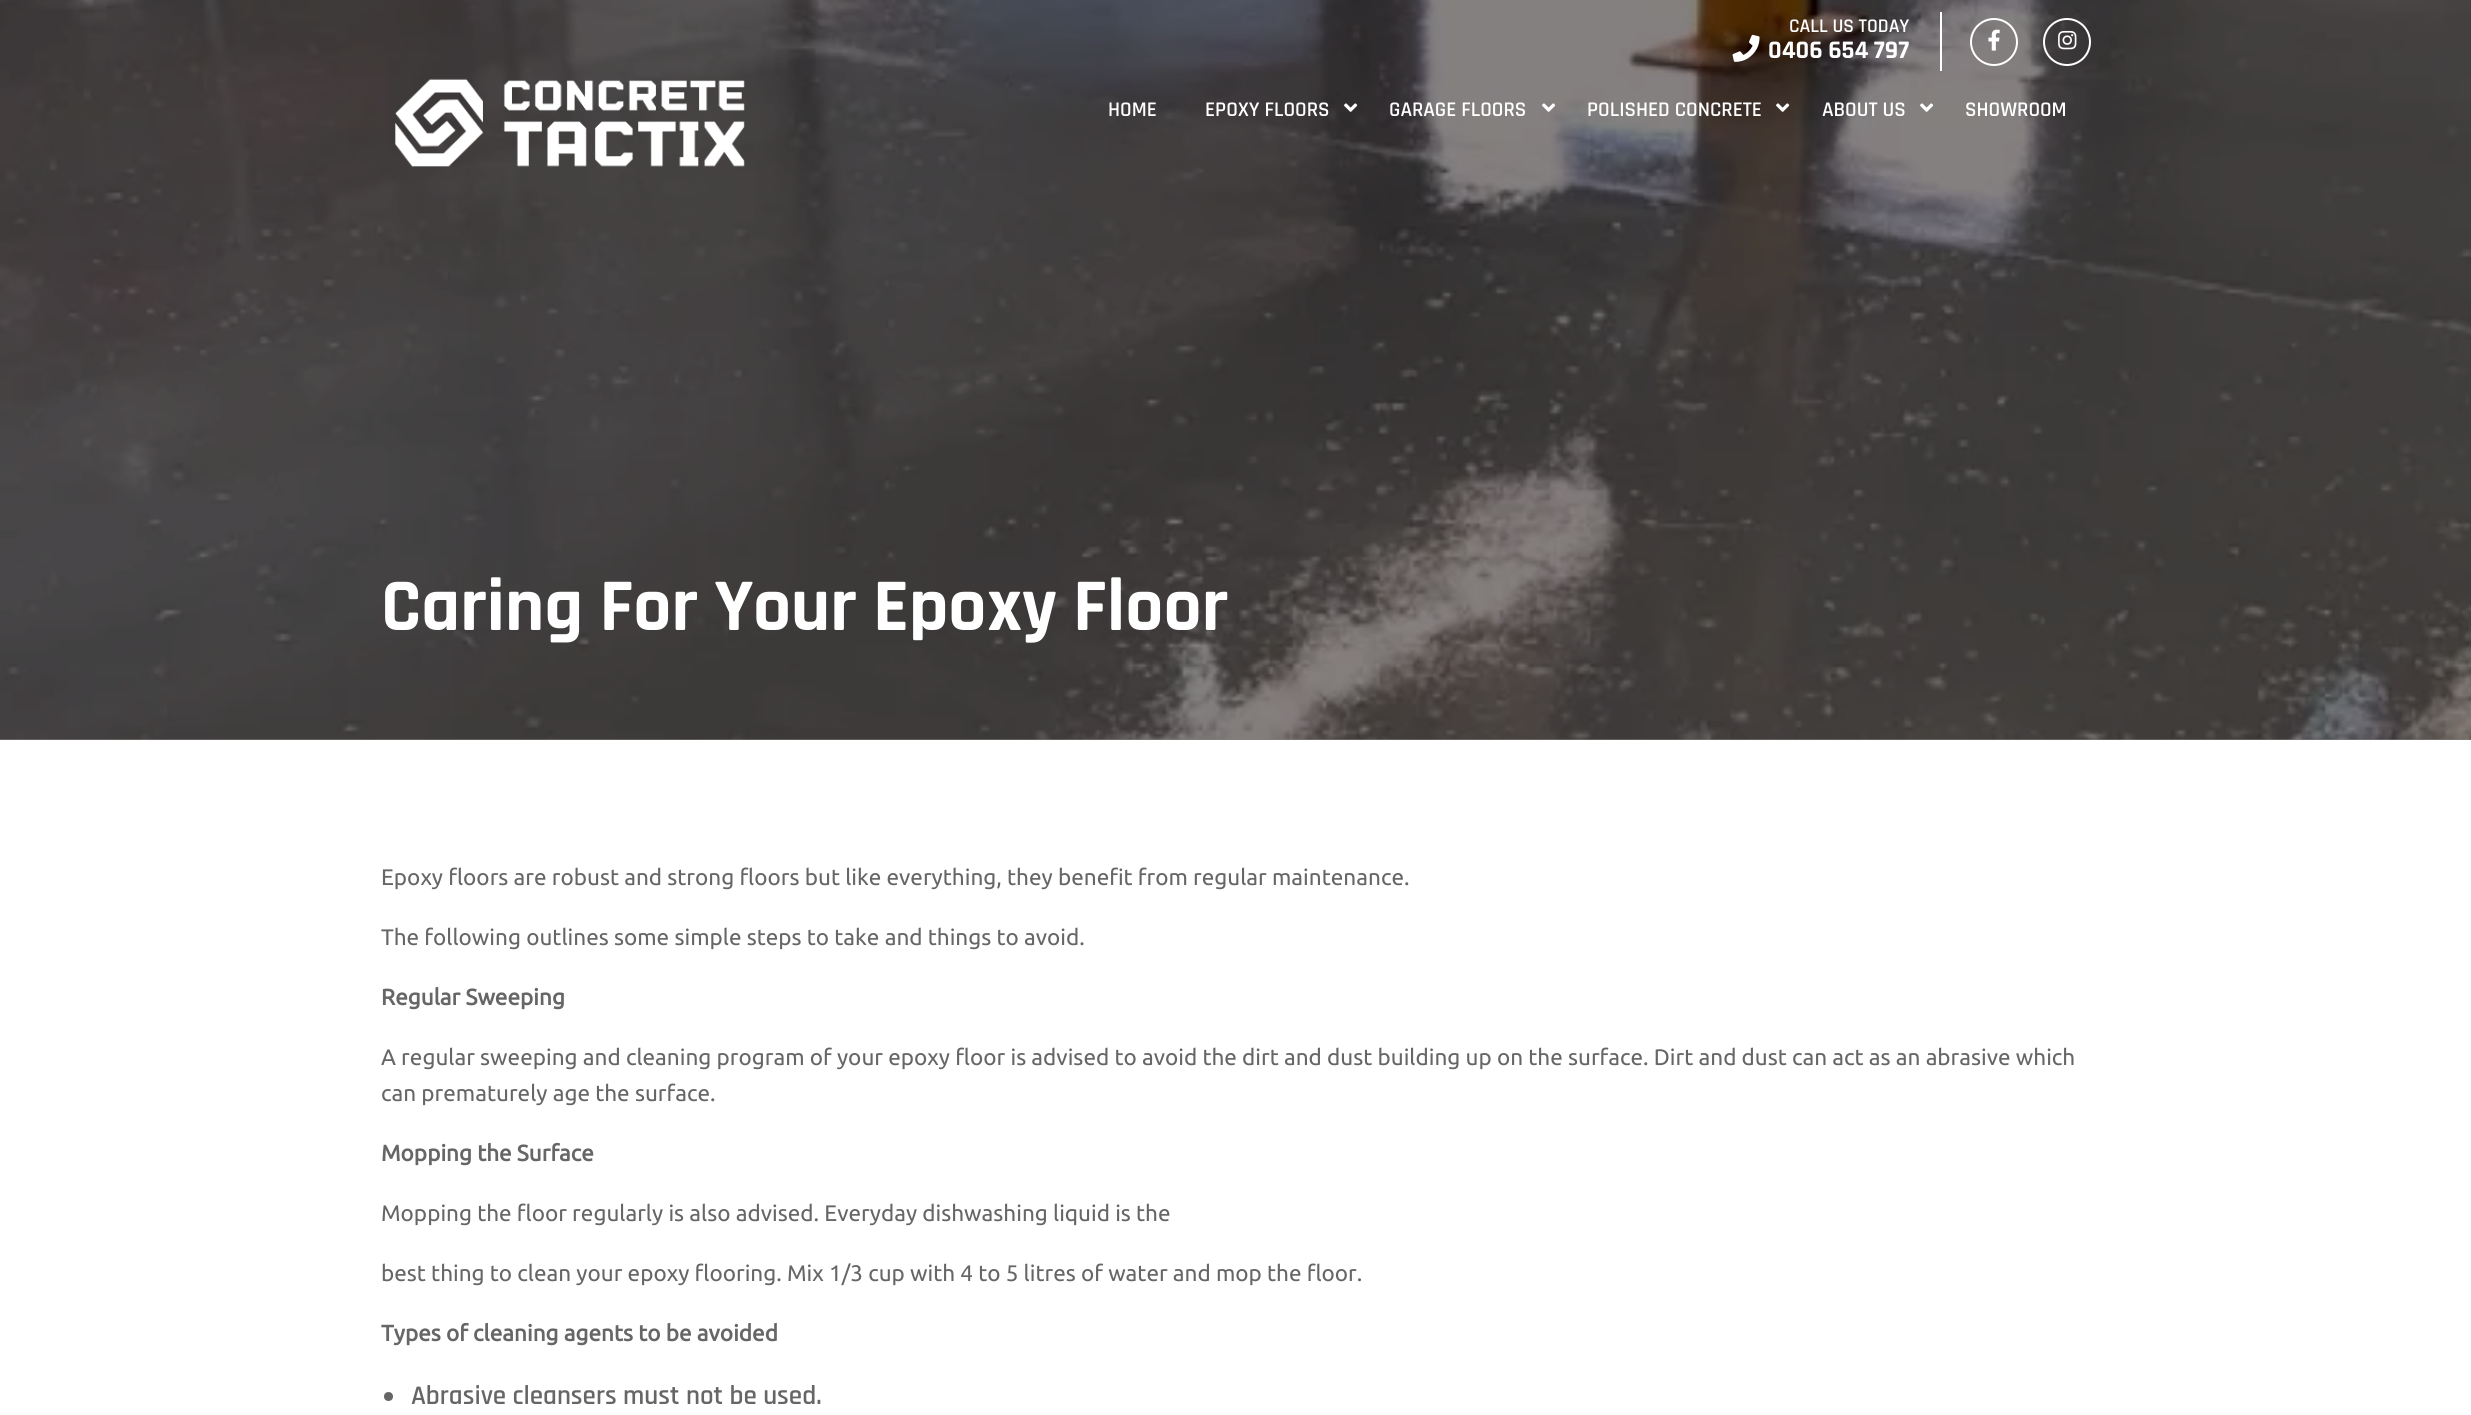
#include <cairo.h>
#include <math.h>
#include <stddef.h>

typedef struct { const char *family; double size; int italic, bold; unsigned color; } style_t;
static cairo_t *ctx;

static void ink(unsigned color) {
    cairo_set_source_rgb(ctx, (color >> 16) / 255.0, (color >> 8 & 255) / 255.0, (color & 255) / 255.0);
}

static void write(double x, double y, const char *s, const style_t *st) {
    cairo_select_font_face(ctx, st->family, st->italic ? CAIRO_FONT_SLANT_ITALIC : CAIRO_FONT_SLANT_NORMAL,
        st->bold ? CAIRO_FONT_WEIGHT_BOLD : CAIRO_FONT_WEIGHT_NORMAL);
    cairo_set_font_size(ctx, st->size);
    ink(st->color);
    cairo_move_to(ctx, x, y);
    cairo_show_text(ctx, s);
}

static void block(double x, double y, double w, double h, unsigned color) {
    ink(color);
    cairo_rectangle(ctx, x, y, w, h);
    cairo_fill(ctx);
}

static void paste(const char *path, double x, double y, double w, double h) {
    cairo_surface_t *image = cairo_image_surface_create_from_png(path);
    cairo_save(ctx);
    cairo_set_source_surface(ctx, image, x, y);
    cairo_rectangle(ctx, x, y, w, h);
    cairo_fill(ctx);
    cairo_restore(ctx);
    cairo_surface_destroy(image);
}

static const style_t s1 = {"Rajdhani SemiBold", 19.5, 0, 0, 0xffffff};
static const style_t s2 = {"Rajdhani", 25.5, 0, 1, 0xffffff};
static const style_t s3 = {"Rajdhani SemiBold", 21, 0, 0, 0xffffff};
static const style_t s4 = {"Rajdhani", 75, 0, 1, 0xffffff};
static const style_t s5 = {"Ubuntu", 22.5, 0, 0, 0x666666};
static const style_t s6 = {"Ubuntu", 22.5, 0, 1, 0x666666};
static const style_t s7 = {"Rajdhani SemiBold", 27, 0, 0, 0x666666};

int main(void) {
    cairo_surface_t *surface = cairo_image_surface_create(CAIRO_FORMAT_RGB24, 2471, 1415);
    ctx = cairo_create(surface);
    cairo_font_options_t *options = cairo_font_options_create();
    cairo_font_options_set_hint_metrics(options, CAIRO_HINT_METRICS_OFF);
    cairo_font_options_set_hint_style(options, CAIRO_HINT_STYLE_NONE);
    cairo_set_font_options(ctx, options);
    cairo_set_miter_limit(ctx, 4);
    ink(0xffffff);
    cairo_paint(ctx);
    block(0, 739, 2471, 1, 0x858080);
    paste("pic9.png", 0, 0, 2471, 740);
    write(1789, 32, "CALL US TODAY", &s1);
    block(1940, 12, 2, 59, 0xffffff);
    paste("pic1.png", 1732, 34, 28, 28);
    write(1768, 58, "0406 654 797", &s2);
    cairo_new_path(ctx);
    cairo_arc(ctx, 1994, 42, 23, 0, 2 * M_PI);
    cairo_stroke(ctx);
    paste("pic2.png", 1988, 29, 12, 22);
    cairo_arc(ctx, 2067, 42, 23, 0, 2 * M_PI);
    cairo_stroke(ctx);
    paste("pic3.png", 2058, 30, 19, 20);
    paste("pic4.png", 395, 78, 350, 89);
    write(1108, 116, "HOME", &s3);
    write(1205, 116, "EPOXY FLOORS", &s3);
    paste("pic5.png", 1344, 103, 14, 9);
    write(1389, 116, "GARAGE FLOORS", &s3);
    paste("pic6.png", 1542, 103, 14, 9);
    write(1587, 116, "POLISHED CONCRETE", &s3);
    paste("pic7.png", 1776, 103, 14, 9);
    write(1822, 116, "ABOUT US", &s3);
    paste("pic8.png", 1920, 103, 14, 9);
    write(1965, 116, "SHOWROOM", &s3);
    write(381, 630, "Caring For Your Epoxy Floor", &s4);
    write(381, 885, "Epoxy floors are robust and strong floors but like everything, they benefit from regular maintenance.", &s5);
    write(381, 945, "The following outlines some simple steps to take and things to avoid.", &s5);
    write(381, 1005, "Regular Sweeping", &s6);
    write(381, 1065, "A regular sweeping and cleaning program of your epoxy floor is advised to avoid the dirt and dust building up on the surface. Dirt and dust can act as an abrasive which", &s5);
    write(381, 1101, "can prematurely age the surface.", &s5);
    write(381, 1161, "Mopping the Surface", &s6);
    write(381, 1221, "Mopping the floor regularly is also advised. Everyday dishwashing liquid is the", &s5);
    write(381, 1281, "best thing to clean your epoxy flooring. Mix 1/3 cup with 4 to 5 litres of water and mop the floor.", &s5);
    write(381, 1341, "Types of cleaning agents to be avoided", &s6);
    cairo_new_path(ctx);
    cairo_arc(ctx, 388.5, 1396.5, 4.5, 0, 2 * M_PI);
    cairo_fill(ctx);
    write(411, 1404, "Abrasive cleansers must not be used.", &s7);
    cairo_surface_write_to_png(surface, "screenshot.png");
    cairo_font_options_destroy(options);
    cairo_destroy(ctx);
    cairo_surface_destroy(surface);
    return 0;
}
